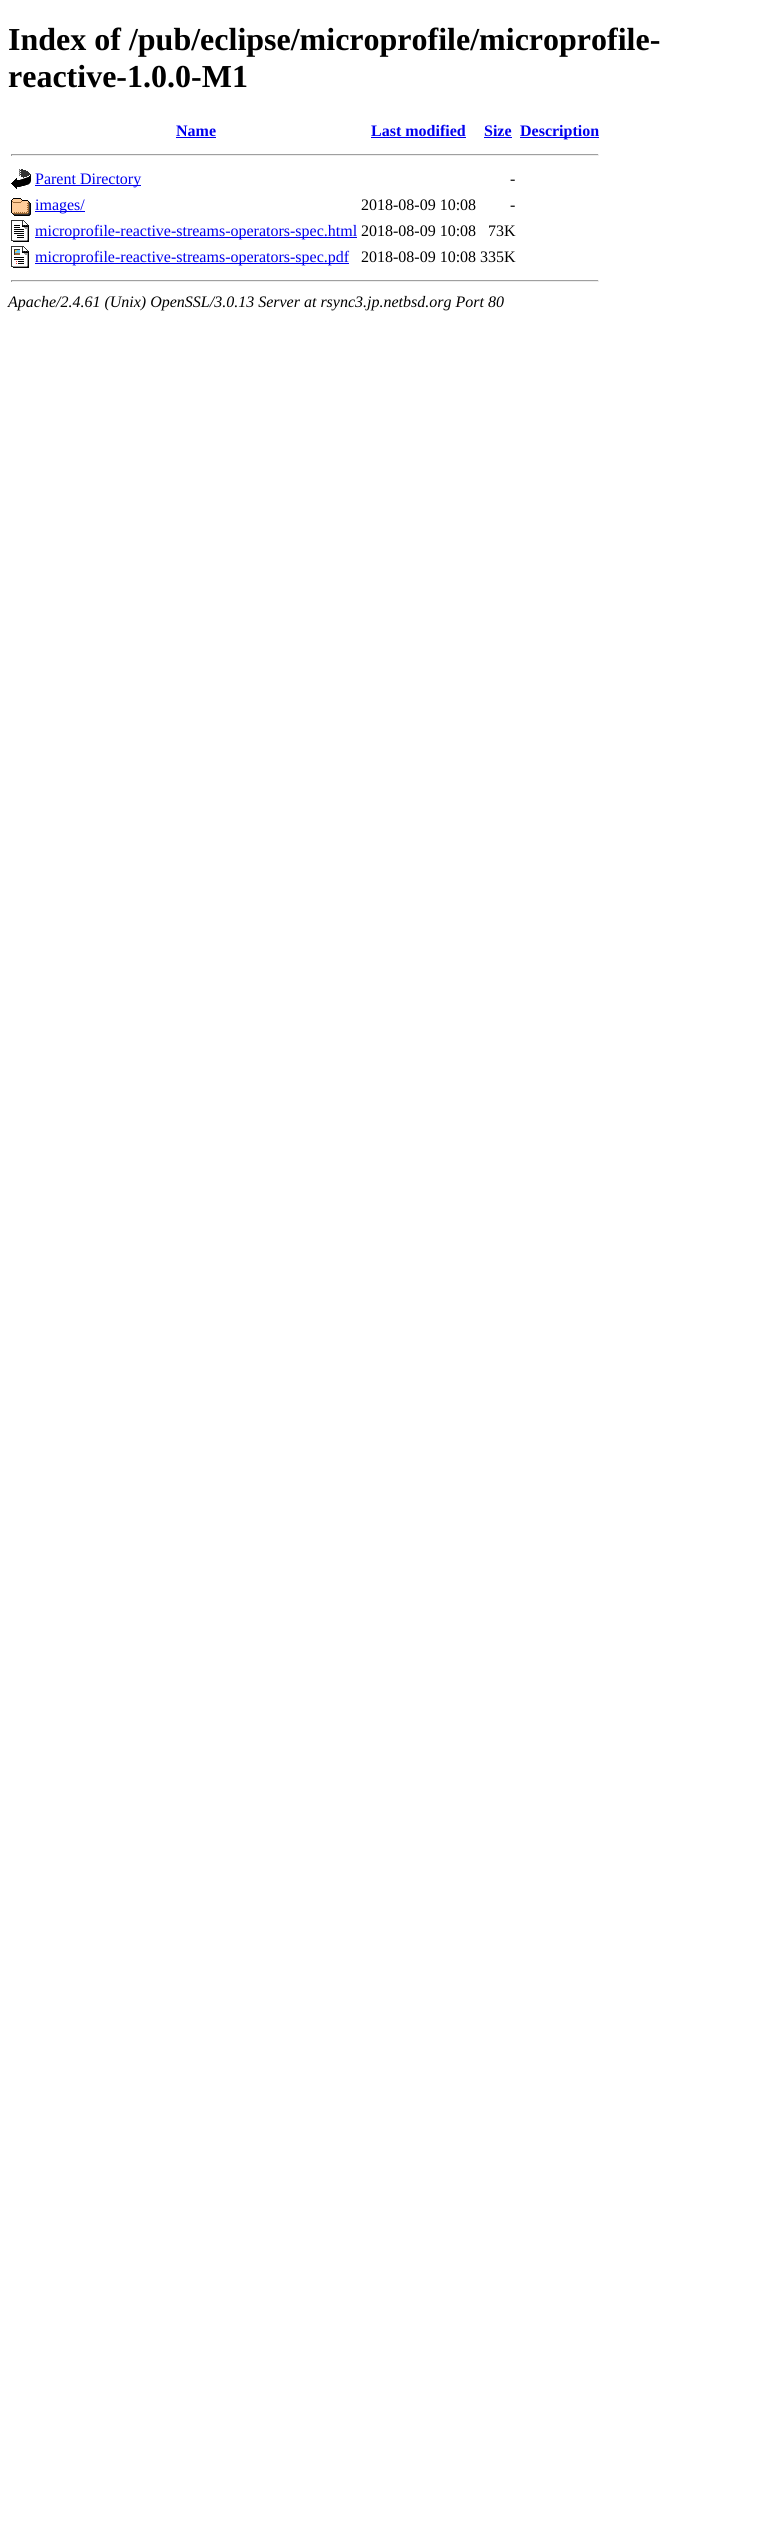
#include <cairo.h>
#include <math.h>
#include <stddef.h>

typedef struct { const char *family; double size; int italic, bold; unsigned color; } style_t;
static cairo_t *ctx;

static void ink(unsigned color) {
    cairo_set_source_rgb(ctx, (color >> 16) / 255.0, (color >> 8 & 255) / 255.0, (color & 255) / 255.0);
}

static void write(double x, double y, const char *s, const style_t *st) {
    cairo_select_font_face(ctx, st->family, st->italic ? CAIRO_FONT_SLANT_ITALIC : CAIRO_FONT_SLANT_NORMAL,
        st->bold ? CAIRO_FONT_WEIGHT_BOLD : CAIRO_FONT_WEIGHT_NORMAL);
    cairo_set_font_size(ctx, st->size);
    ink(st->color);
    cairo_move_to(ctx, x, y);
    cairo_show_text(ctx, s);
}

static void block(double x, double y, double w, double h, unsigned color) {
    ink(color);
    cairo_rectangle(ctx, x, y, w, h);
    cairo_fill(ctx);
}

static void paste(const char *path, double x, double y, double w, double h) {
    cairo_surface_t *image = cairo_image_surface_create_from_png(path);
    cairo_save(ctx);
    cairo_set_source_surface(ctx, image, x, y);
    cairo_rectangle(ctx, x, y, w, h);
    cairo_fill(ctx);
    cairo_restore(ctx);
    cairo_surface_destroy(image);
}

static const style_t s1 = {"Liberation Serif", 32, 0, 1, 0x000000};
static const style_t s2 = {"Liberation Serif", 16, 0, 1, 0x0000ee};
static const style_t s3 = {"Liberation Serif", 16, 0, 0, 0x0000ee};
static const style_t s4 = {"Liberation Serif", 16, 0, 0, 0x000000};
static const style_t s5 = {"Liberation Serif", 16, 1, 0, 0x000000};

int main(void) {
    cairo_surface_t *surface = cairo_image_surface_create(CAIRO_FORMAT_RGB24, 780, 2542);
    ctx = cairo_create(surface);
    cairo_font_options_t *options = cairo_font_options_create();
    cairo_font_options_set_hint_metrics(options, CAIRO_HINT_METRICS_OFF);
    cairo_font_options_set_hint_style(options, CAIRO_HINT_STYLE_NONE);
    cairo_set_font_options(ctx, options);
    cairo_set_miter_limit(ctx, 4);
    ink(0xffffff);
    cairo_paint(ctx);
    write(8, 50, "Index of /pub/eclipse/microprofile/microprofile-", &s1);
    write(8, 87, "reactive-1.0.0-M1", &s1);
    write(176, 136, "Name", &s2);
    block(176, 137, 40, 1, 0x0000ee);
    write(371, 136, "Last modified", &s2);
    block(371, 137, 95, 1, 0x0000ee);
    write(484, 136, "Size", &s2);
    block(484, 137, 28, 1, 0x0000ee);
    block(520, 137, 79, 1, 0x0000ee);
    write(520, 136, "Description", &s2);
    block(11, 154, 588, 1, 0x9f9f9f);
    block(598, 154, 1, 2, 0xeeeeee);
    block(11, 155, 588, 1, 0xeeeeee);
    block(11, 154, 1, 2, 0x9f9f9f);
    paste("pic1.png", 11, 169, 20, 20);
    block(35, 185, 106, 1, 0x0000ee);
    write(35, 184, "Parent Directory", &s3);
    write(510, 184, "-", &s4);
    paste("pic2.png", 11, 198, 20, 18);
    block(35, 211, 50, 1, 0x0000ee);
    write(35, 210, "images/", &s3);
    write(361, 210, "2018-08-09 10:08", &s4);
    write(510, 210, "-", &s4);
    paste("pic3.png", 11, 220, 18, 22);
    block(35, 237, 322, 1, 0x0000ee);
    write(35, 236, "microprofile-reactive-streams-operators-spec.html", &s3);
    write(361, 236, "2018-08-09 10:08", &s4);
    write(488, 236, "73K", &s4);
    paste("pic4.png", 11, 246, 18, 22);
    block(35, 263, 314, 1, 0x0000ee);
    write(35, 262, "microprofile-reactive-streams-operators-spec.pdf", &s3);
    write(361, 262, "2018-08-09 10:08 335K", &s4);
    block(11, 280, 588, 1, 0x9f9f9f);
    block(598, 280, 1, 2, 0xeeeeee);
    block(11, 281, 588, 1, 0xeeeeee);
    block(11, 280, 1, 2, 0x9f9f9f);
    write(8, 307, "Apache/2.4.61 (Unix) OpenSSL/3.0.13 Server at rsync3.jp.netbsd.org Port 80", &s5);
    cairo_surface_write_to_png(surface, "screenshot.png");
    cairo_font_options_destroy(options);
    cairo_destroy(ctx);
    cairo_surface_destroy(surface);
    return 0;
}
